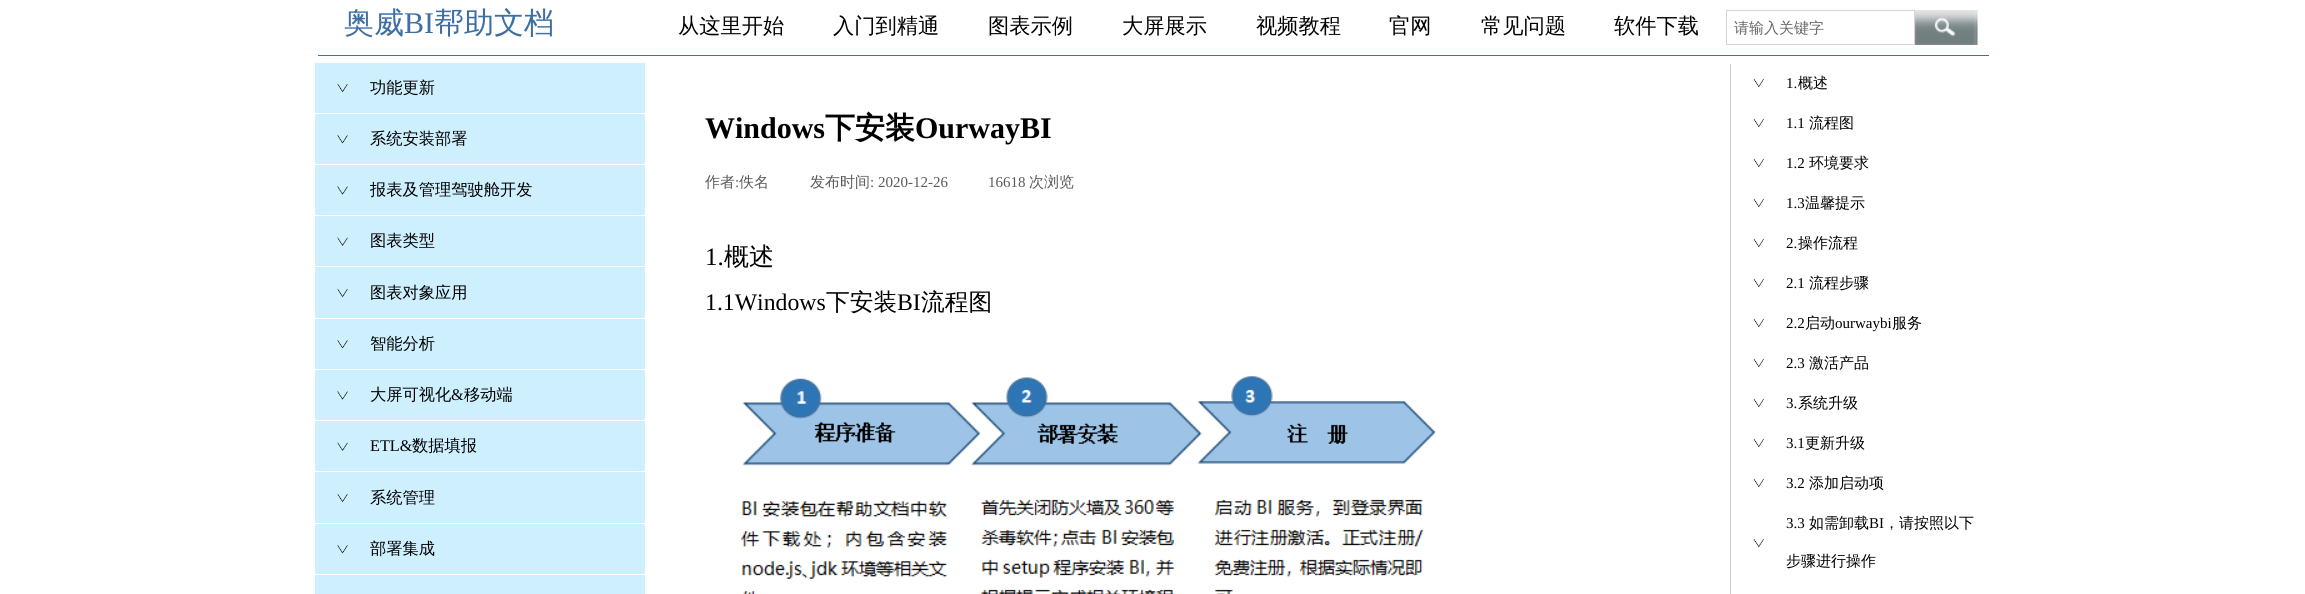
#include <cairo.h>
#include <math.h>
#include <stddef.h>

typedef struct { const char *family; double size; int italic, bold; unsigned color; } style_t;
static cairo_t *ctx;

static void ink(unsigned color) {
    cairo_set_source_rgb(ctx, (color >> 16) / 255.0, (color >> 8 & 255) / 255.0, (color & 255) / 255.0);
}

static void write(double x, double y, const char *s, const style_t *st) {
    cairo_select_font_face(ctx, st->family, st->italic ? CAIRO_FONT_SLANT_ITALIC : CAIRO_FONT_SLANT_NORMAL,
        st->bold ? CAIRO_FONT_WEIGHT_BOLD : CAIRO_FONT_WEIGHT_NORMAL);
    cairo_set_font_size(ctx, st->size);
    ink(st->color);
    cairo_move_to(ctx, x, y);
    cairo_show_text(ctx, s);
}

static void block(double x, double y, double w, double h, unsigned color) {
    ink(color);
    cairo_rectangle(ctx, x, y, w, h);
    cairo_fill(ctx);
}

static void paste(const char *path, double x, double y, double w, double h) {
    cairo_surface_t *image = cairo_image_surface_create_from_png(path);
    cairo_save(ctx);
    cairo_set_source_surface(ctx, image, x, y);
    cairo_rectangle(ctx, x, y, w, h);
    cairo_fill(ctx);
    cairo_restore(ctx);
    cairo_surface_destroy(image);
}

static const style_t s1 = {"WenQuanYi Zen Hei Medium", 30, 0, 0, 0x3d6fa4};
static const style_t s2 = {"Liberation Serif", 30, 0, 0, 0x3d6fa4};
static const style_t s3 = {"WenQuanYi Zen Hei Medium", 21.25, 0, 0, 0x000000};
static const style_t s4 = {"WenQuanYi Zen Hei Medium", 15, 0, 0, 0x666666};
static const style_t s5 = {"Liberation Serif", 15, 0, 0, 0x000000};
static const style_t s6 = {"WenQuanYi Zen Hei Medium", 15, 0, 0, 0x000000};
static const style_t s7 = {"WenQuanYi Zen Hei Medium", 16.25, 0, 0, 0x000000};
static const style_t s8 = {"Liberation Serif", 16.25, 0, 0, 0x000000};
static const style_t s9 = {"Liberation Serif", 30, 0, 1, 0x000000};
static const style_t s10 = {"WenQuanYi Zen Hei", 30, 0, 1, 0x000000};
static const style_t s11 = {"WenQuanYi Zen Hei Medium", 15, 0, 0, 0x5a5a5a};
static const style_t s12 = {"Liberation Serif", 15, 0, 0, 0x5a5a5a};
static const style_t s13 = {"Liberation Serif", 25, 0, 0, 0x000000};
static const style_t s14 = {"WenQuanYi Zen Hei Medium", 25, 0, 0, 0x000000};
static const style_t s15 = {"Liberation Serif", 23.75, 0, 0, 0x000000};
static const style_t s16 = {"WenQuanYi Zen Hei Medium", 23.75, 0, 0, 0x000000};

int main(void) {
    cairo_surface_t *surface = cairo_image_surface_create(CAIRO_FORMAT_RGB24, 2305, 594);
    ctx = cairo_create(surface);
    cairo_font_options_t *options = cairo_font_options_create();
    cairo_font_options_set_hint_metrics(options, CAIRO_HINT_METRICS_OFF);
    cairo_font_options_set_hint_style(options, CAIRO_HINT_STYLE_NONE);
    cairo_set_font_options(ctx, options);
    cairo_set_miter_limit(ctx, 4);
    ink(0xffffff);
    cairo_paint(ctx);
    block(318, 55, 326, 1, 0x3d6fa4);
    write(344, 33, "奥威", &s1);
    write(404, 33, "BI", &s2);
    write(434, 33, "帮助文档", &s1);
    write(678, 33, "从这里开始", &s3);
    write(833, 33, "入门到精通", &s3);
    write(988, 33, "图表示例", &s3);
    write(1122, 33, "大屏展示", &s3);
    write(1256, 33, "视频教程", &s3);
    write(1389, 33, "官网", &s3);
    write(1481, 33, "常见问题", &s3);
    write(1614, 33, "软件下载", &s3);
    cairo_rectangle(ctx, 1726.5, 10.5, 188, 34);
    ink(0xd3d3d3);
    cairo_set_line_width(ctx, 1);
    cairo_stroke(ctx);
    write(1734, 33, "请输入关键字", &s4);
    paste("pic1.png", 1915, 10, 63, 35);
    block(641, 55, 1348, 1, 0x3d6fa4);
    block(1730, 64, 1, 530, 0xcccccc);
    paste("pic2.png", 1753, 78, 11, 10);
    write(1786, 88, "1.", &s5);
    write(1798, 88, "概述", &s6);
    paste("pic2.png", 1753, 118, 11, 10);
    write(1786, 128, "1.1", &s5);
    write(1809, 128, "流程图", &s6);
    paste("pic2.png", 1753, 158, 11, 10);
    write(1786, 168, "1.2", &s5);
    write(1809, 168, "环境要求", &s6);
    paste("pic2.png", 1753, 198, 11, 10);
    write(1786, 208, "1.3", &s5);
    write(1805, 208, "温馨提示", &s6);
    paste("pic2.png", 1753, 238, 11, 10);
    write(1786, 248, "2.", &s5);
    write(1798, 248, "操作流程", &s6);
    paste("pic2.png", 1753, 278, 11, 10);
    write(1786, 288, "2.1", &s5);
    write(1809, 288, "流程步骤", &s6);
    paste("pic2.png", 1753, 318, 11, 10);
    write(1786, 328, "2.2", &s5);
    write(1805, 328, "启动", &s6);
    write(1835, 328, "ourwaybi", &s5);
    write(1892, 328, "服务", &s6);
    paste("pic2.png", 1753, 358, 11, 10);
    write(1786, 368, "2.3", &s5);
    write(1809, 368, "激活产品", &s6);
    paste("pic2.png", 1753, 398, 11, 10);
    write(1786, 408, "3.", &s5);
    write(1798, 408, "系统升级", &s6);
    paste("pic2.png", 1753, 438, 11, 10);
    write(1786, 448, "3.1", &s5);
    write(1805, 448, "更新升级", &s6);
    paste("pic2.png", 1753, 478, 11, 10);
    write(1786, 488, "3.2", &s5);
    write(1809, 488, "添加启动项", &s6);
    write(1786, 528, "3.3", &s5);
    write(1809, 528, "如需卸载", &s6);
    write(1869, 528, "BI", &s5);
    write(1884, 528, "，请按照以下", &s6);
    paste("pic2.png", 1753, 538, 11, 10);
    write(1786, 566, "步骤进行操作", &s6);
    block(315, 63, 330, 531, 0xcdeffe);
    block(315, 113, 330, 1, 0xffffff);
    paste("pic3.png", 337, 83, 11, 10);
    write(370, 93, "功能更新", &s7);
    block(315, 164, 330, 1, 0xffffff);
    paste("pic4.png", 337, 135, 11, 9);
    write(370, 144, "系统安装部署", &s7);
    block(315, 215, 330, 1, 0xffffff);
    paste("pic5.png", 337, 186, 11, 9);
    write(370, 195, "报表及管理驾驶舱开发", &s7);
    block(315, 266, 330, 1, 0xffffff);
    paste("pic6.png", 337, 237, 11, 9);
    write(370, 246, "图表类型", &s7);
    block(315, 318, 330, 1, 0xffffff);
    paste("pic7.png", 337, 288, 11, 10);
    write(370, 298, "图表对象应用", &s7);
    block(315, 369, 330, 1, 0xffffff);
    paste("pic4.png", 337, 340, 11, 9);
    write(370, 349, "智能分析", &s7);
    block(315, 420, 330, 1, 0xffffff);
    paste("pic5.png", 337, 391, 11, 9);
    write(370, 400, "大屏可视化", &s7);
    write(451, 400, "&", &s8);
    write(464, 400, "移动端", &s7);
    block(315, 471, 330, 1, 0xffffff);
    paste("pic6.png", 337, 442, 11, 9);
    write(370, 451, "ETL&", &s8);
    write(412, 451, "数据填报", &s7);
    block(315, 523, 330, 1, 0xffffff);
    paste("pic3.png", 337, 493, 11, 10);
    write(370, 503, "系统管理", &s7);
    block(315, 574, 330, 1, 0xffffff);
    paste("pic4.png", 337, 545, 11, 9);
    write(370, 554, "部署集成", &s7);
    write(705, 138, "Windows", &s9);
    write(825, 138, "下安装", &s10);
    write(915, 138, "OurwayBI", &s9);
    write(705, 187, "作者", &s11);
    write(735, 187, ":", &s12);
    write(739, 187, "佚名", &s11);
    write(810, 187, "发布时间", &s11);
    write(870, 187, ": 2020-12-26", &s12);
    write(988, 187, "16618", &s12);
    write(1029, 187, "次浏览", &s11);
    write(705, 265, "1.", &s13);
    write(724, 265, "概述", &s14);
    write(705, 310, "1.1Windows", &s15);
    write(826, 310, "下安装", &s16);
    write(897, 310, "BI", &s15);
    write(921, 310, "流程图", &s16);
    paste("pic8.png", 741, 376, 695, 218);
    cairo_surface_write_to_png(surface, "screenshot.png");
    cairo_font_options_destroy(options);
    cairo_destroy(ctx);
    cairo_surface_destroy(surface);
    return 0;
}
